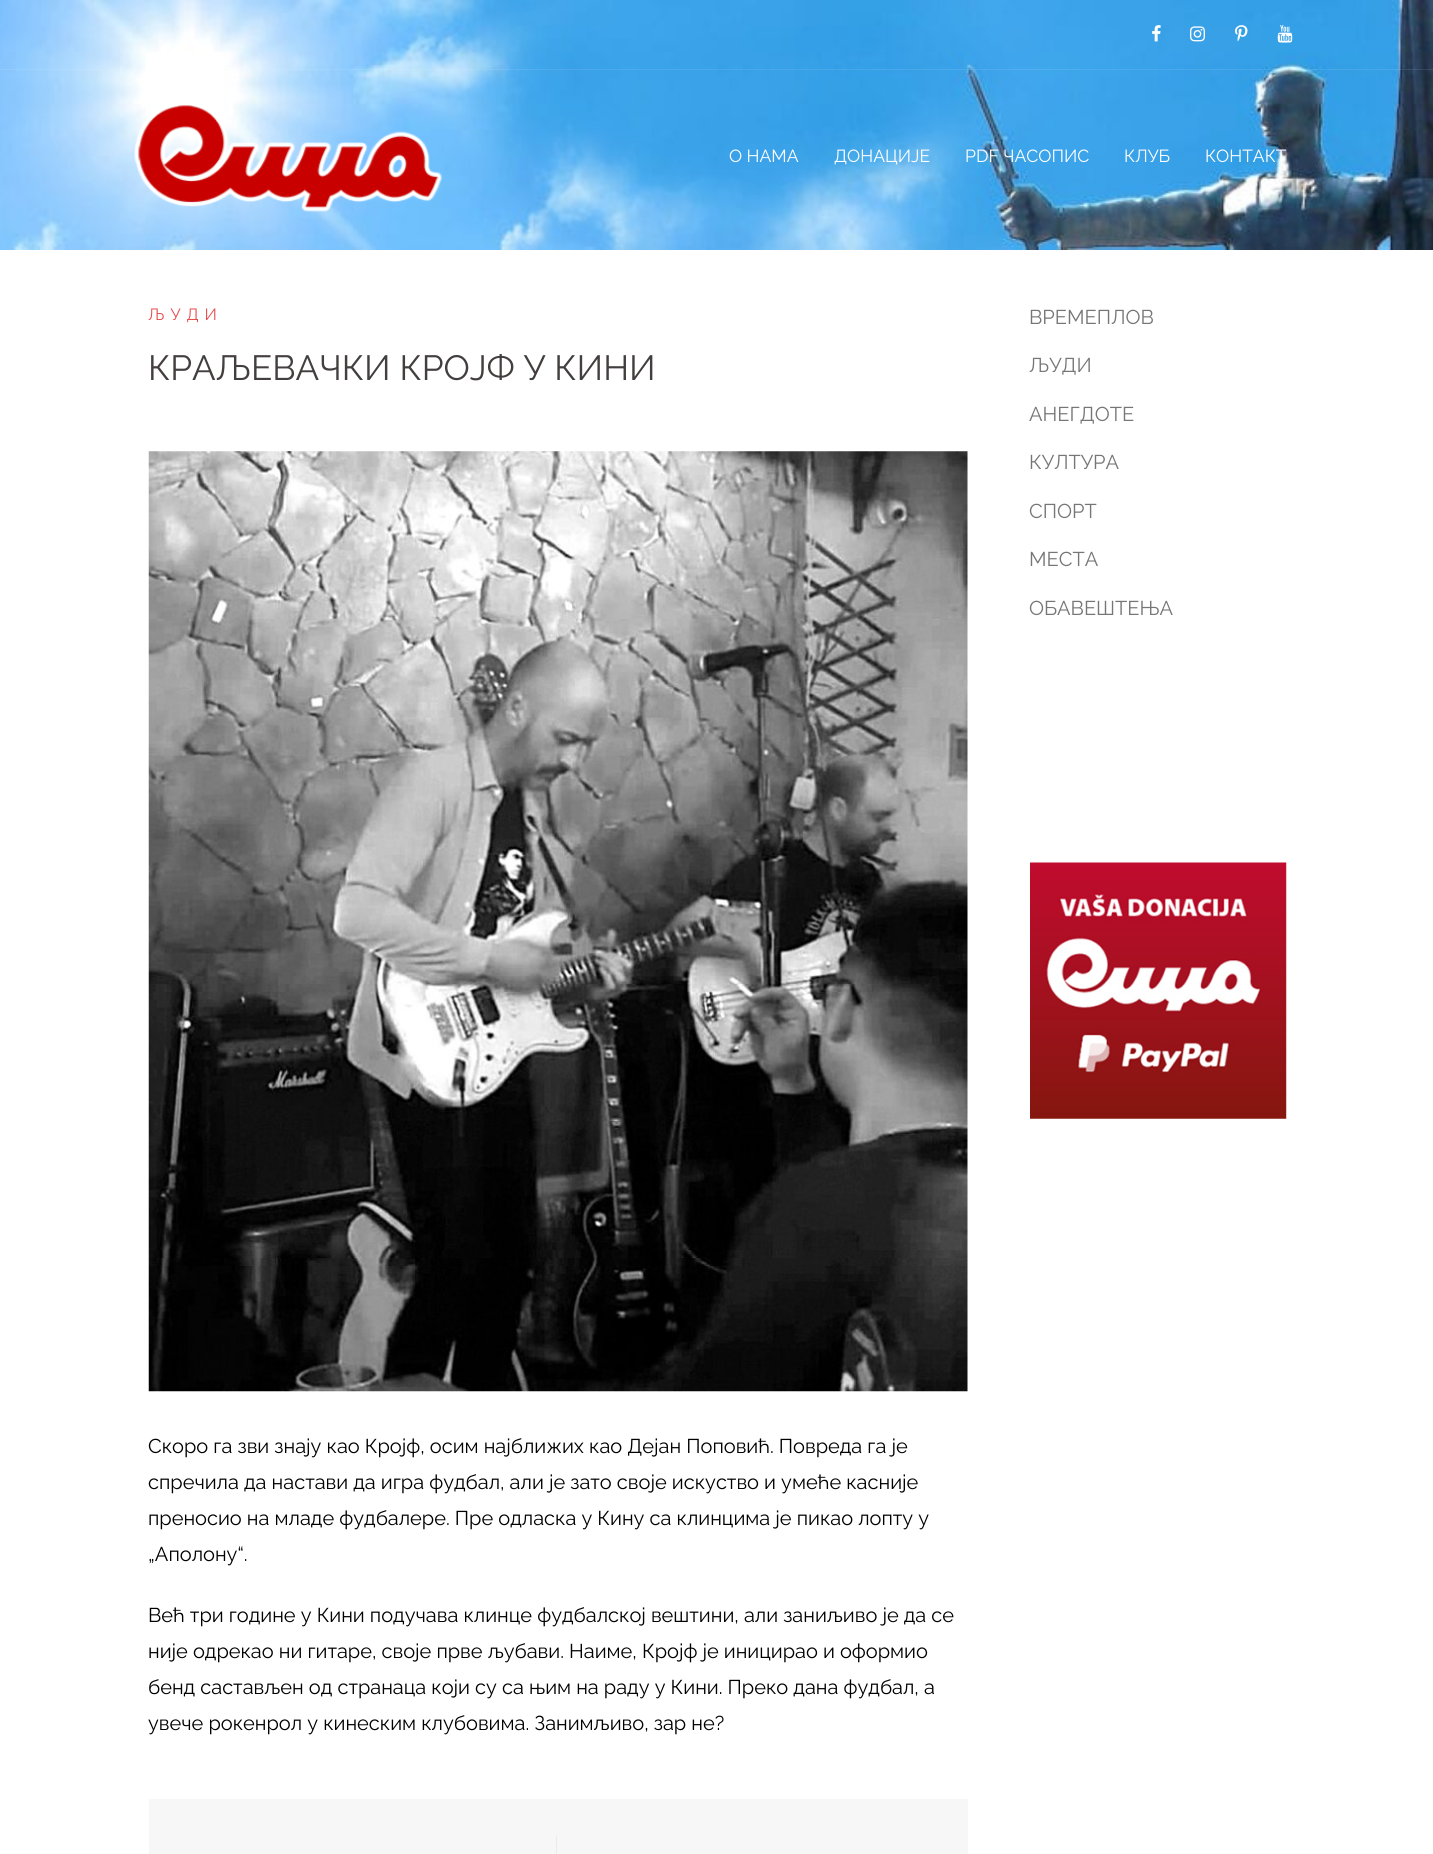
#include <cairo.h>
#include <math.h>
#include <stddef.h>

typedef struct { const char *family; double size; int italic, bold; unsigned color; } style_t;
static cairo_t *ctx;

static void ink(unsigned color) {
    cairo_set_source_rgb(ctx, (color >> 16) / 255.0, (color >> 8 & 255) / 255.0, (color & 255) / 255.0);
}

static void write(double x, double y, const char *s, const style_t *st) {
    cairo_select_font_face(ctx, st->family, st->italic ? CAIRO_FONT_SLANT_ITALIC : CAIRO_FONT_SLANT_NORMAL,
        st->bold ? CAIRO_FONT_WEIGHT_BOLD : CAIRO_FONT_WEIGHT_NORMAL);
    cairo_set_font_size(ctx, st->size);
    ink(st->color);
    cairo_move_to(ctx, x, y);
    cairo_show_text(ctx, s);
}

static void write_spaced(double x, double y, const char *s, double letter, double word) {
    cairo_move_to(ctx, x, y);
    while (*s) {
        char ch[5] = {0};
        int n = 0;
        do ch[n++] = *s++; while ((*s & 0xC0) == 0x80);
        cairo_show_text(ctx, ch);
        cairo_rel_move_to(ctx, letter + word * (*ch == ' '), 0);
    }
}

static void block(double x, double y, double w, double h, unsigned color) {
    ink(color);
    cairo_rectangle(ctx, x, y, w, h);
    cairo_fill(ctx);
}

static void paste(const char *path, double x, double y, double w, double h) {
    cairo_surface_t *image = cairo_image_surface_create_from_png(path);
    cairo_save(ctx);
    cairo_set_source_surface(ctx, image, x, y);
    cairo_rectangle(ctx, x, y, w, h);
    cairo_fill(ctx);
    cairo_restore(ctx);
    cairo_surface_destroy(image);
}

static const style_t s1 = {"Raleway", 17.5, 0, 0, 0xffffff};
static const style_t s2 = {"Raleway", 35, 0, 0, 0x443f3f};
static const style_t s3 = {"Raleway", 20, 0, 0, 0x000000};
static const style_t s4 = {"Raleway", 20, 0, 0, 0x767676};

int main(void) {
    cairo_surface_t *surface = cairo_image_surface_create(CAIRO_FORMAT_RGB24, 1433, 1854);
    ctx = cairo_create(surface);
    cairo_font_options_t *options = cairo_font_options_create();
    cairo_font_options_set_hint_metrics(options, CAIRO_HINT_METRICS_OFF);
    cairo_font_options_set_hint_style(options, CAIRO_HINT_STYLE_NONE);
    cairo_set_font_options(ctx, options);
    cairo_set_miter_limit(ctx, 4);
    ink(0xffffff);
    cairo_paint(ctx);
    paste("pic1.png", 0, 0, 1433, 250);
    cairo_set_source_rgba(ctx, 0.945, 0.945, 0.945, 0.1);
    cairo_rectangle(ctx, 0, 69, 1433, 1);
    cairo_fill(ctx);
    paste("pic2.png", 1152, 25, 9, 17);
    paste("pic3.png", 1190, 26, 15, 16);
    paste("pic4.png", 1235, 25, 13, 17);
    paste("pic5.png", 1277, 25, 16, 18);
    paste("pic6.png", 134, 105, 309, 107);
    write(729, 162, "О НАМА", &s1);
    write(834, 162, "ДОНАЦИЈЕ", &s1);
    write(965, 162, "PDF ЧАСОПИС", &s1);
    write(1124, 162, "КЛУБ", &s1);
    write(1205, 162, "КОНТАКТ", &s1);
    cairo_set_font_size(ctx, 16.25);
    ink(0xe64e4e);
    write_spaced(148, 320, "ЉУДИ", 6, 0);
    write(148, 380, "КРАЉЕВАЧКИ КРОЈФ У КИНИ", &s2);
    paste("pic7.png", 148, 451, 820, 941);
    write(148, 1453, "Скоро га зви знају као Кројф, осим најближих као Дејан Поповић. Повреда га је", &s3);
    write(148, 1489, "спречила да настави да игра фудбал, али је зато своје искуство и умеће касније", &s3);
    write(148, 1525, "преносио на младе фудбалере. Пре одласка у Кину са клинцима је пикао лопту у", &s3);
    write(148, 1561, "„Аполону“.", &s3);
    write(148, 1622, "Већ три године у Кини подучава клинце фудбалској вештини, али заниљиво је да се", &s3);
    write(148, 1658, "није одрекао ни гитаре, своје прве љубави. Наиме, Кројф је иницирао и оформио", &s3);
    write(148, 1694, "бенд састављен од странаца који су са њим на раду у Кини. Преко дана фудбал, а", &s3);
    write(148, 1730, "увече рокенрол у кинеским клубовима. Занимљиво, зар не?", &s3);
    block(149, 1799, 819, 55, 0xf7f7f7);
    block(556, 1836, 1, 18, 0xebebeb);
    write(1029, 324, "ВРЕМЕПЛОВ", &s4);
    write(1029, 372, "ЉУДИ", &s4);
    write(1029, 421, "АНЕГДОТЕ", &s4);
    write(1029, 469, "КУЛТУРА", &s4);
    write(1029, 518, "СПОРТ", &s4);
    write(1029, 566, "МЕСТА", &s4);
    write(1029, 615, "ОБАВЕШТЕЊА", &s4);
    paste("pic8.png", 1030, 862, 257, 257);
    cairo_surface_write_to_png(surface, "screenshot.png");
    cairo_font_options_destroy(options);
    cairo_destroy(ctx);
    cairo_surface_destroy(surface);
    return 0;
}
